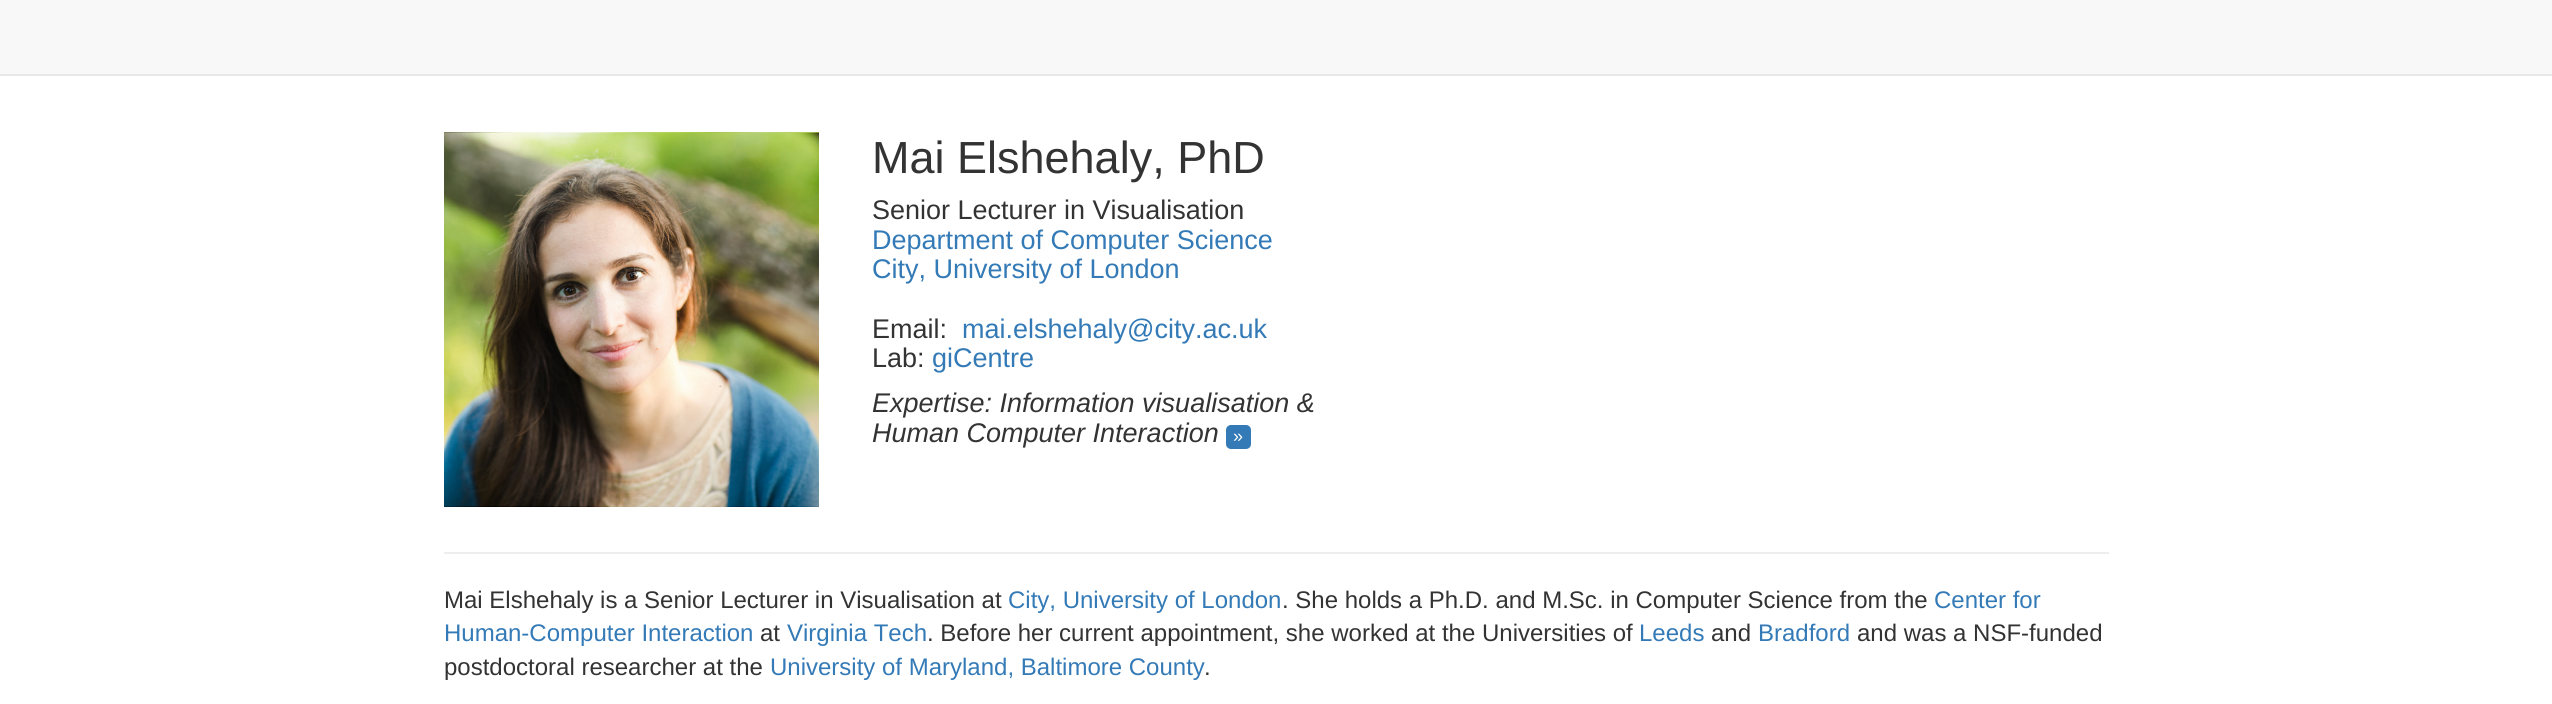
#include <cairo.h>
#include <math.h>
#include <stddef.h>

typedef struct { const char *family; double size; int italic, bold; unsigned color; } style_t;
static cairo_t *ctx;

static void ink(unsigned color) {
    cairo_set_source_rgb(ctx, (color >> 16) / 255.0, (color >> 8 & 255) / 255.0, (color & 255) / 255.0);
}

static void write(double x, double y, const char *s, const style_t *st) {
    cairo_select_font_face(ctx, st->family, st->italic ? CAIRO_FONT_SLANT_ITALIC : CAIRO_FONT_SLANT_NORMAL,
        st->bold ? CAIRO_FONT_WEIGHT_BOLD : CAIRO_FONT_WEIGHT_NORMAL);
    cairo_set_font_size(ctx, st->size);
    ink(st->color);
    cairo_move_to(ctx, x, y);
    cairo_show_text(ctx, s);
}

static void block(double x, double y, double w, double h, unsigned color) {
    ink(color);
    cairo_rectangle(ctx, x, y, w, h);
    cairo_fill(ctx);
}

static void round_path(double x, double y, double w, double h, double r) {
    cairo_new_sub_path(ctx);
    cairo_arc(ctx, x + w - r, y + h - r, r, 0, M_PI / 2);
    cairo_arc(ctx, x + r, y + h - r, r, M_PI / 2, M_PI);
    cairo_arc(ctx, x + r, y + r, r, M_PI, 1.5 * M_PI);
    cairo_arc(ctx, x + w - r, y + r, r, 1.5 * M_PI, 2 * M_PI);
    cairo_close_path(ctx);
}

static void paste(const char *path, double x, double y, double w, double h) {
    cairo_surface_t *image = cairo_image_surface_create_from_png(path);
    cairo_save(ctx);
    cairo_set_source_surface(ctx, image, x, y);
    cairo_rectangle(ctx, x, y, w, h);
    cairo_fill(ctx);
    cairo_restore(ctx);
    cairo_surface_destroy(image);
}

static const style_t s1 = {"Liberation Sans", 45, 0, 0, 0x333333};
static const style_t s2 = {"Liberation Sans", 27, 0, 0, 0x333333};
static const style_t s3 = {"Liberation Sans", 27, 0, 0, 0x337ab7};
static const style_t s4 = {"Liberation Sans", 27, 1, 0, 0x333333};
static const style_t s5 = {"Liberation Sans", 18, 0, 0, 0xffffff};
static const style_t s6 = {"Liberation Sans", 24, 0, 0, 0x333333};
static const style_t s7 = {"Liberation Sans", 24, 0, 0, 0x337ab7};

int main(void) {
    cairo_surface_t *surface = cairo_image_surface_create(CAIRO_FORMAT_RGB24, 2552, 704);
    ctx = cairo_create(surface);
    cairo_font_options_t *options = cairo_font_options_create();
    cairo_font_options_set_hint_metrics(options, CAIRO_HINT_METRICS_OFF);
    cairo_font_options_set_hint_style(options, CAIRO_HINT_STYLE_NONE);
    cairo_set_font_options(ctx, options);
    cairo_set_miter_limit(ctx, 4);
    ink(0xffffff);
    cairo_paint(ctx);
    block(0, 0, 2552, 74, 0xf8f8f8);
    block(0, 74, 2552, 2, 0xe7e7e7);
    paste("pic1.png", 444, 132, 375, 375);
    write(872, 173, "Mai Elshehaly, PhD", &s1);
    write(872, 219, "Senior Lecturer in Visualisation", &s2);
    write(872, 249, "Department of Computer Science", &s3);
    write(872, 278, "City, University of London", &s3);
    write(872, 338, "Email:", &s2);
    write(962, 338, "mai.elshehaly@city.ac.uk", &s3);
    write(872, 367, "Lab:", &s2);
    write(932, 367, "giCentre", &s3);
    write(872, 412, "Expertise: Information visualisation &", &s4);
    write(872, 442, "Human Computer Interaction", &s4);
    ink(0x337ab7);
    round_path(1226, 425, 25, 24, 5);
    cairo_fill(ctx);
    write(1233, 442, "»", &s5);
    block(444, 552, 1665, 2, 0xeeeeee);
    write(444, 608, "Mai Elshehaly is a Senior Lecturer in Visualisation at", &s6);
    write(1008, 608, "City, University of London", &s7);
    write(1282, 608, ". She holds a Ph.D. and M.Sc. in Computer Science from the", &s6);
    write(1934, 608, "Center for", &s7);
    write(444, 641, "Human-Computer Interaction", &s7);
    write(760, 641, "at", &s6);
    write(787, 641, "Virginia Tech", &s7);
    write(927, 641, ". Before her current appointment, she worked at the Universities of", &s6);
    write(1639, 641, "Leeds", &s7);
    write(1711, 641, "and", &s6);
    write(1758, 641, "Bradford", &s7);
    write(1857, 641, "and was a NSF-funded", &s6);
    write(444, 675, "postdoctoral researcher at the", &s6);
    write(770, 675, "University of Maryland, Baltimore County", &s7);
    write(1204, 675, ".", &s6);
    cairo_surface_write_to_png(surface, "screenshot.png");
    cairo_font_options_destroy(options);
    cairo_destroy(ctx);
    cairo_surface_destroy(surface);
    return 0;
}
